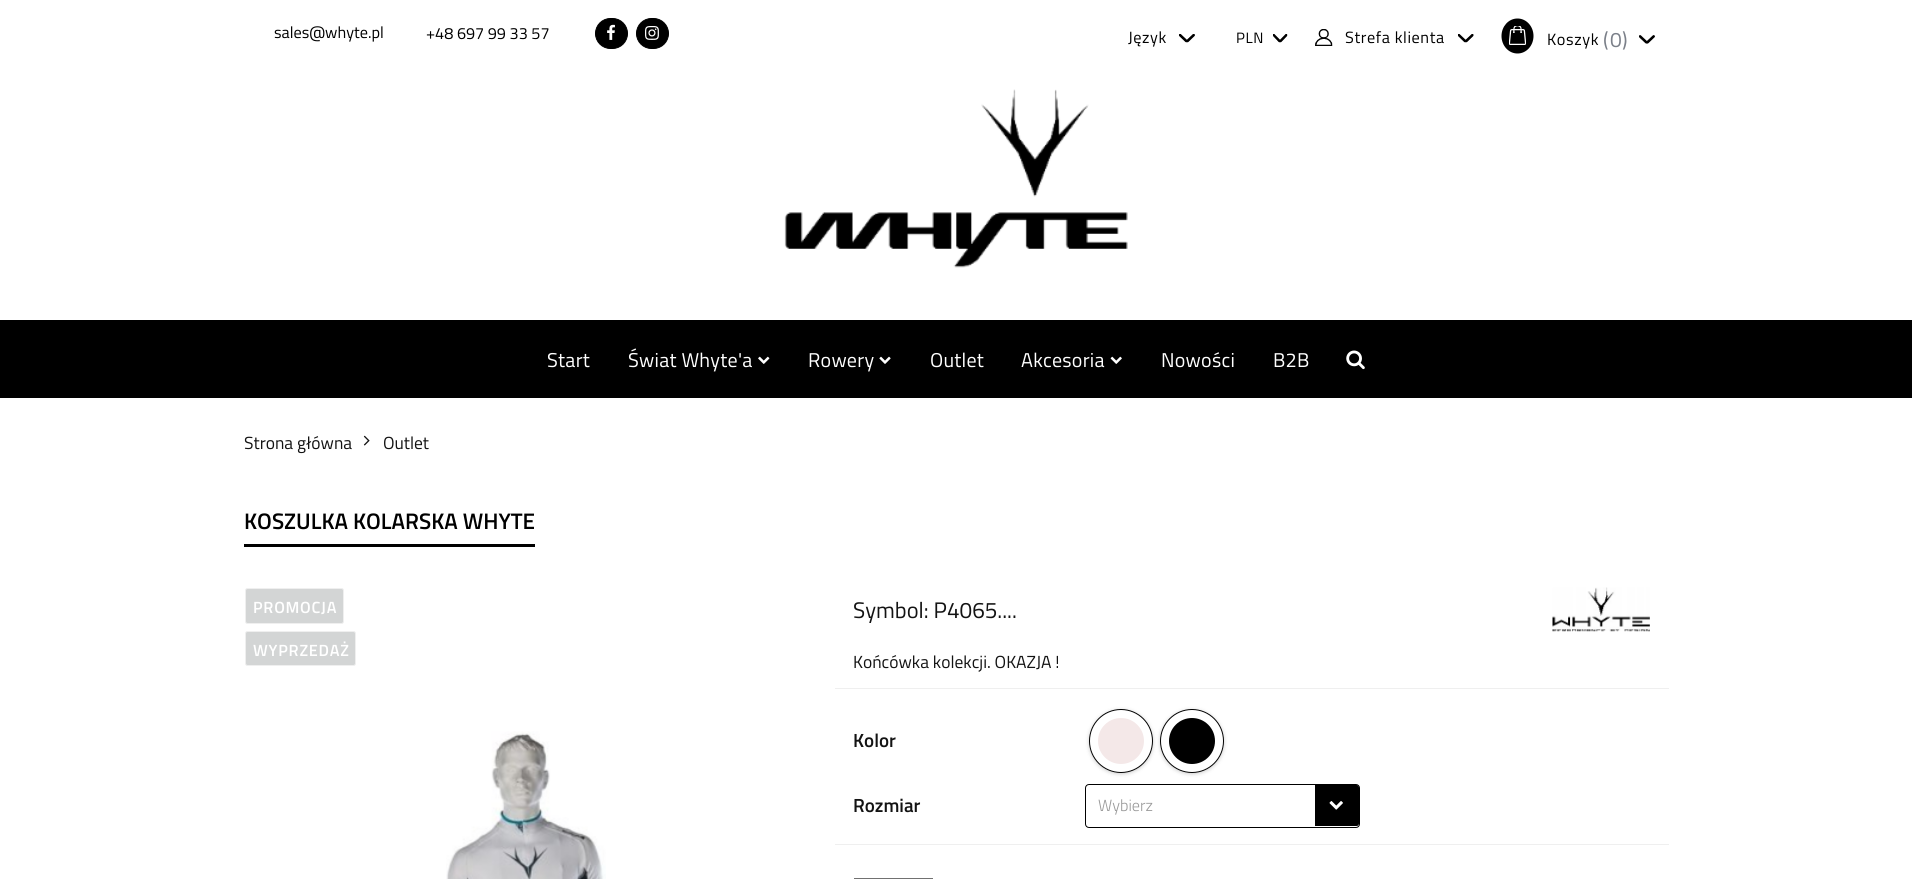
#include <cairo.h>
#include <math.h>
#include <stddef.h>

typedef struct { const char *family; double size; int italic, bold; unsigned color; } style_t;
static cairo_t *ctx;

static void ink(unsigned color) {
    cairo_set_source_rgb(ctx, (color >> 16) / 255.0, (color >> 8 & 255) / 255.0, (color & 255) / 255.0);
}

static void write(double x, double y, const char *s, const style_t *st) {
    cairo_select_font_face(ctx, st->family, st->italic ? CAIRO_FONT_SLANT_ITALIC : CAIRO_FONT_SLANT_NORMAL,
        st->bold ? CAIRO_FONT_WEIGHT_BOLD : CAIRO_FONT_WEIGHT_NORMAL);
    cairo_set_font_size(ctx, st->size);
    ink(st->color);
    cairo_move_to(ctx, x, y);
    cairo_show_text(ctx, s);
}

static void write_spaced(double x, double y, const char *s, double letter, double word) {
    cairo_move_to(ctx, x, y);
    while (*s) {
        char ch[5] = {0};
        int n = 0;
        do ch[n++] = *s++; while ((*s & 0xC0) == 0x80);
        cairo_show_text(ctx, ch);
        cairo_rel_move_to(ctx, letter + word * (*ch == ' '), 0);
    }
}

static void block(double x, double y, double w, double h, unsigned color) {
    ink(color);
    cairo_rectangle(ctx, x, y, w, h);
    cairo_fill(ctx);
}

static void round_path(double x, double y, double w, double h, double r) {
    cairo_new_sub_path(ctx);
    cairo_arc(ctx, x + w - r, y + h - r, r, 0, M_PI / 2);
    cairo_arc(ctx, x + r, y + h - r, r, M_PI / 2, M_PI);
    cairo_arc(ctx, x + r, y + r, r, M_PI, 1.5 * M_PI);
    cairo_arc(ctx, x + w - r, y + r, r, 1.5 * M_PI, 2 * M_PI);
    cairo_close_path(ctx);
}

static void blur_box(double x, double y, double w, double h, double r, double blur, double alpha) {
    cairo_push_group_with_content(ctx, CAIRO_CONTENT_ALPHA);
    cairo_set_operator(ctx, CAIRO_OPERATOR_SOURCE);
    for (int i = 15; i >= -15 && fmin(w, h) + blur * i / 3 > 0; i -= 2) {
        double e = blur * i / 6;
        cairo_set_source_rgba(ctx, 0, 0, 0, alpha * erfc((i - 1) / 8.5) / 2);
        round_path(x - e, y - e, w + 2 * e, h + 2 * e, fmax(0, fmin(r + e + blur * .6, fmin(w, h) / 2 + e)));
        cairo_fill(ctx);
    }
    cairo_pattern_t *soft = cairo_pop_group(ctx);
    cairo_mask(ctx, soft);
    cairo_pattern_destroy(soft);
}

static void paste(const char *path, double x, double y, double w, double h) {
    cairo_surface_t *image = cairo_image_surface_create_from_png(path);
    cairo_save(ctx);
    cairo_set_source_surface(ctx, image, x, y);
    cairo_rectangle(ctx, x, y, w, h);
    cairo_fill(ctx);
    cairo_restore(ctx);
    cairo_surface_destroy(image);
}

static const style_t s1 = {"Titillium Web", 16.25, 0, 0, 0x000000};
static const style_t s2 = {"Titillium Web", 21, 0, 0, 0x7b8089};
static const style_t s3 = {"Titillium Web", 17.5, 0, 0, 0x131313};
static const style_t s4 = {"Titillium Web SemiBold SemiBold", 22.5, 0, 0, 0x000000};
static const style_t s5 = {"Titillium Web", 22.5, 0, 0, 0x131313};
static const style_t s6 = {"Titillium Web SemiBold SemiBold", 19, 0, 0, 0x131313};
static const style_t s7 = {"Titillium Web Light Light", 16.25, 0, 0, 0x999999};

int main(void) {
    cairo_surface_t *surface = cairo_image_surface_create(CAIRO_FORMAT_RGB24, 1912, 879);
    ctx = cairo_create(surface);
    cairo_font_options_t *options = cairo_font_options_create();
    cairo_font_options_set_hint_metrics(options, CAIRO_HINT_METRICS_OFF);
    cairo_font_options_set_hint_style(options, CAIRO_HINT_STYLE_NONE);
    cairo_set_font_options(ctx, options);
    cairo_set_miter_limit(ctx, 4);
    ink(0xffffff);
    cairo_paint(ctx);
    write(274, 38, "sales@whyte.pl", &s1);
    write(426, 39, "+48 697 99 33 57", &s1);
    round_path(595.5, 18.5, 32, 30, 15);
    cairo_fill_preserve(ctx);
    cairo_set_line_width(ctx, 1);
    cairo_stroke(ctx);
    paste("pic1.png", 607, 24, 8, 16);
    round_path(636.5, 18.5, 32, 30, 15);
    cairo_fill_preserve(ctx);
    cairo_stroke(ctx);
    paste("pic2.png", 645, 26, 14, 14);
    write_spaced(1128, 43, "Język", 0.6, 0);
    paste("pic3.png", 1179, 34, 16, 9);
    cairo_set_font_size(ctx, 15);
    write_spaced(1236, 43, "PLN", 0.6, 0);
    paste("pic4.png", 1273, 34, 15, 9);
    paste("pic5.png", 1315, 29, 18, 17);
    cairo_set_font_size(ctx, 16.25);
    write_spaced(1345, 43, "Strefa klienta", 0.6, 0);
    paste("pic6.png", 1458, 34, 16, 9);
    cairo_new_path(ctx);
    cairo_move_to(ctx, 1517.5, 18.5);
    cairo_curve_to(ctx, 1526.5, 18.5, 1533.5, 26.5, 1533.5, 36);
    cairo_curve_to(ctx, 1533.5, 45.5, 1526.5, 53.5, 1517.5, 53.5);
    cairo_curve_to(ctx, 1508.5, 53.5, 1501.5, 45.5, 1501.5, 36);
    cairo_curve_to(ctx, 1501.5, 26.5, 1508.5, 18.5, 1517.5, 18.5);
    cairo_close_path(ctx);
    cairo_fill(ctx);
    paste("pic7.png", 1509, 26, 17, 19);
    write_spaced(1547, 45, "Koszyk", 0.6, 0);
    write(1603, 47, "(", &s2);
    write(1610, 47, "0", &s2);
    write(1622, 47, ")", &s2);
    paste("pic8.png", 1639, 35, 16, 9);
    paste("pic9.png", 784, 89, 344, 179);
    block(0, 320, 1912, 78, 0x000000);
    cairo_set_font_size(ctx, 20);
    ink(0xffffff);
    write_spaced(547, 367, "Start", 0.25, 0);
    write_spaced(628, 367, "Świat Whyte'a", 0.25, 0);
    paste("pic10.png", 758, 356, 12, 8);
    write_spaced(808, 367, "Rowery", 0.25, 0);
    paste("pic11.png", 879, 356, 12, 8);
    write_spaced(930, 367, "Outlet", 0.25, 0);
    write_spaced(1021, 367, "Akcesoria", 0.25, 0);
    paste("pic12.png", 1110, 356, 12, 8);
    write_spaced(1161, 367, "Nowości", 0.25, 0);
    write_spaced(1273, 367, "B2B", 0.25, 0);
    paste("pic13.png", 1346, 350, 19, 20);
    write(244, 449, "Strona główna", &s3);
    paste("pic14.png", 363, 435, 7, 11);
    write(383, 449, "Outlet", &s3);
    write(244, 529, "KOSZULKA KOLARSKA WHYTE", &s4);
    block(244, 544, 291, 3, 0x000000);
    ink(0xd3d5d5);
    round_path(245.5, 588.5, 98, 35, 2);
    cairo_fill_preserve(ctx);
    ink(0xefefef);
    cairo_stroke(ctx);
    cairo_set_font_size(ctx, 16.25);
    ink(0xffffff);
    write_spaced(253, 613, "PROMOCJA", 0.75, 0);
    ink(0xd3d5d5);
    round_path(245.5, 631.5, 110, 34, 2);
    cairo_fill_preserve(ctx);
    ink(0xefefef);
    cairo_stroke(ctx);
    ink(0xffffff);
    write_spaced(253, 656, "WYPRZEDAŻ", 0.75, 0);
    paste("pic15.png", 446, 731, 160, 148);
    block(835, 688, 834, 1, 0xefefef);
    write(853, 618, "Symbol: P4065....", &s5);
    paste("pic16.png", 1552, 587, 98, 45);
    write(853, 668, "Końcówka kolekcji. OKAZJA !", &s3);
    block(835, 844, 834, 1, 0xefefef);
    write(853, 747, "Kolor", &s6);
    cairo_save(ctx);
    cairo_set_fill_rule(ctx, CAIRO_FILL_RULE_EVEN_ODD);
    cairo_new_path(ctx);
    cairo_move_to(ctx, 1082, 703);
    cairo_line_to(ctx, 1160, 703);
    cairo_line_to(ctx, 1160, 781);
    cairo_line_to(ctx, 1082, 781);
    cairo_close_path(ctx);
    cairo_move_to(ctx, 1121, 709);
    cairo_curve_to(ctx, 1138.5, 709, 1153, 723.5, 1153, 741);
    cairo_curve_to(ctx, 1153, 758.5, 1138.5, 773, 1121, 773);
    cairo_curve_to(ctx, 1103.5, 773, 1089, 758.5, 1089, 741);
    cairo_curve_to(ctx, 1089, 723.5, 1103.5, 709, 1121, 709);
    cairo_close_path(ctx);
    cairo_clip(ctx);
    ink(0x000000);
    blur_box(1089, 710, 64, 64, 32, 2, 0.2);
    cairo_restore(ctx);
    cairo_arc(ctx, 1121, 741, 31.5, 0, 2 * M_PI);
    ink(0x000000);
    cairo_stroke(ctx);
    ink(0xf4e8e8);
    cairo_arc(ctx, 1121, 741, 23, 0, 2 * M_PI);
    cairo_fill(ctx);
    cairo_save(ctx);
    cairo_set_fill_rule(ctx, CAIRO_FILL_RULE_EVEN_ODD);
    cairo_new_path(ctx);
    cairo_move_to(ctx, 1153, 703);
    cairo_line_to(ctx, 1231, 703);
    cairo_line_to(ctx, 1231, 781);
    cairo_line_to(ctx, 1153, 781);
    cairo_close_path(ctx);
    cairo_move_to(ctx, 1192, 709);
    cairo_curve_to(ctx, 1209.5, 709, 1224, 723.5, 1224, 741);
    cairo_curve_to(ctx, 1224, 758.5, 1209.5, 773, 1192, 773);
    cairo_curve_to(ctx, 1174.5, 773, 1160, 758.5, 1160, 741);
    cairo_curve_to(ctx, 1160, 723.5, 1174.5, 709, 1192, 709);
    cairo_close_path(ctx);
    cairo_clip(ctx);
    ink(0x000000);
    blur_box(1160, 710, 64, 64, 32, 2, 0.2);
    cairo_restore(ctx);
    cairo_arc(ctx, 1192, 741, 31.5, 0, 2 * M_PI);
    ink(0x000000);
    cairo_stroke(ctx);
    cairo_arc(ctx, 1192, 741, 23, 0, 2 * M_PI);
    cairo_fill(ctx);
    write(853, 812, "Rozmiar", &s6);
    round_path(1085.5, 784.5, 274, 43, 3.5);
    ink(0x000000);
    cairo_stroke(ctx);
    write(1098, 811, "Wybierz", &s7);
    ink(0x000000);
    cairo_new_path(ctx);
    cairo_move_to(ctx, 1315, 785);
    cairo_line_to(ctx, 1356.5, 785);
    cairo_curve_to(ctx, 1358, 785, 1359, 786, 1359, 787.5);
    cairo_line_to(ctx, 1359, 823.5);
    cairo_curve_to(ctx, 1359, 825, 1358, 826, 1356.5, 826);
    cairo_line_to(ctx, 1315, 826);
    cairo_close_path(ctx);
    cairo_fill(ctx);
    paste("pic17.png", 1329, 801, 14, 9);
    cairo_set_source_rgba(ctx, 0.075, 0.075, 0.075, 0.6);
    cairo_rectangle(ctx, 854, 878, 79, 1);
    cairo_fill(ctx);
    cairo_surface_write_to_png(surface, "screenshot.png");
    cairo_font_options_destroy(options);
    cairo_destroy(ctx);
    cairo_surface_destroy(surface);
    return 0;
}
